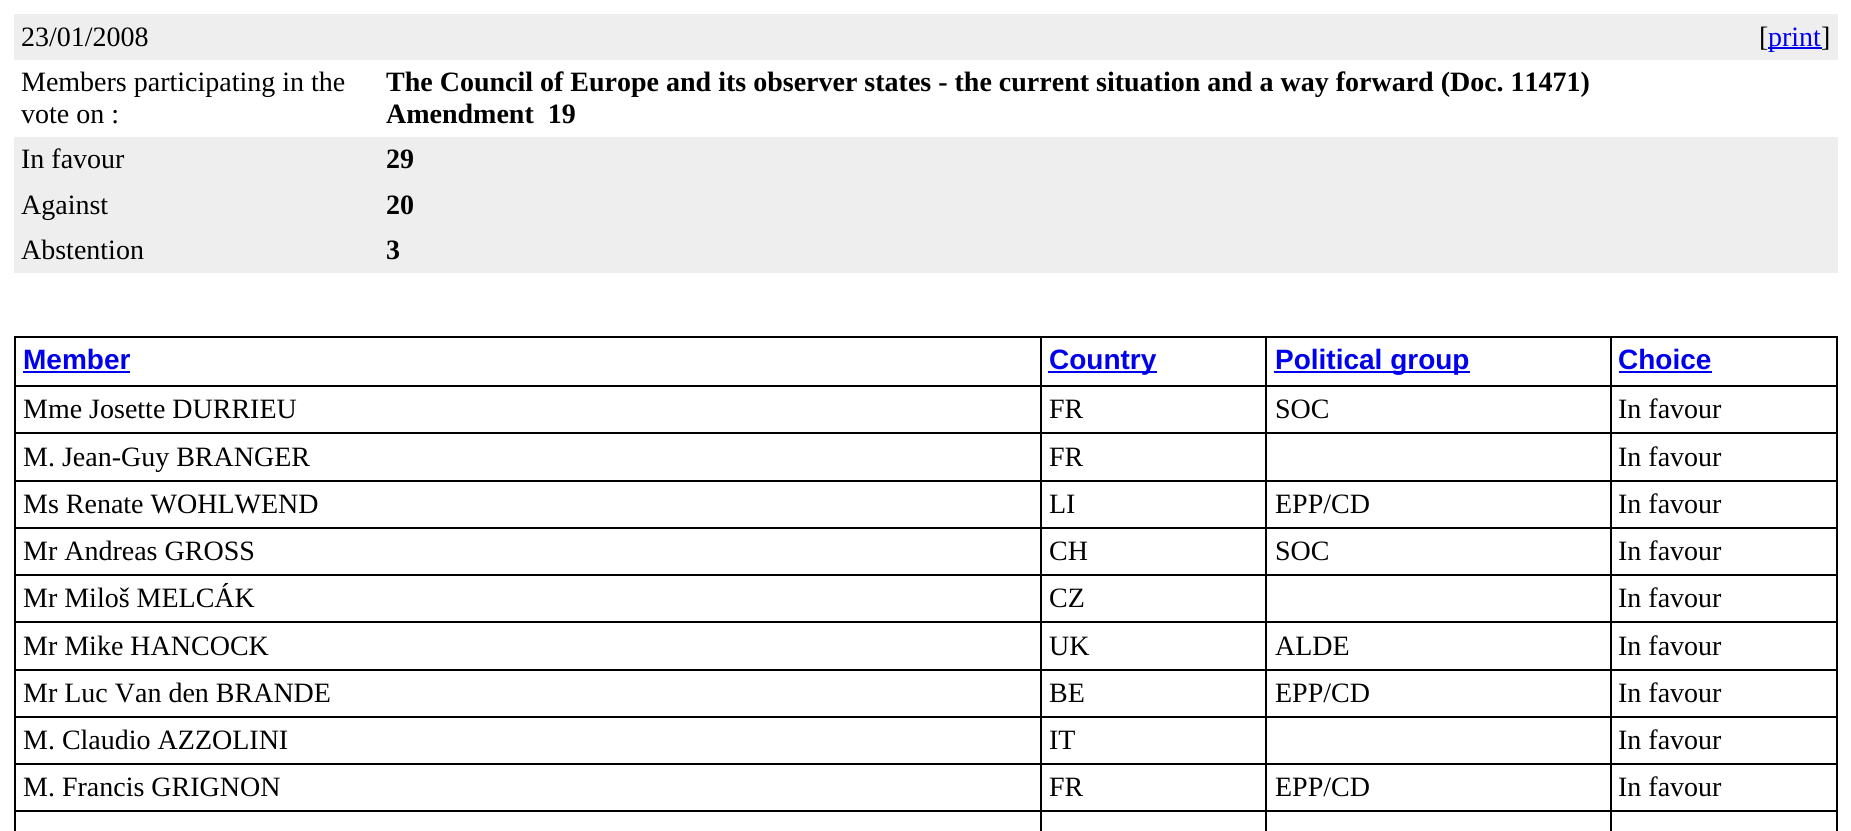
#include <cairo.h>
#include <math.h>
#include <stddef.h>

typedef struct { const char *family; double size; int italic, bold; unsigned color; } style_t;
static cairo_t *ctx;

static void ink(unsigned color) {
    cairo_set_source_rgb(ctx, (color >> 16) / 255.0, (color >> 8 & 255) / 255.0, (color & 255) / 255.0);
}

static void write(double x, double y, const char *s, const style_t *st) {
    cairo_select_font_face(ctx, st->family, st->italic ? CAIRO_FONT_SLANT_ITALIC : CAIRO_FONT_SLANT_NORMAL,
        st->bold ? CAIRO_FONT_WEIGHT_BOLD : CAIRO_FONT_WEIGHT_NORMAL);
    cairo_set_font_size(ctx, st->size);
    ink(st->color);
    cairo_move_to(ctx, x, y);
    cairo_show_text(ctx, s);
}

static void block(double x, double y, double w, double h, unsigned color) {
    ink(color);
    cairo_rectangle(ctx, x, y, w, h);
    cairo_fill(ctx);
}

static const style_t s1 = {"Liberation Serif", 28, 0, 0, 0x000000};
static const style_t s2 = {"Liberation Serif", 28, 0, 0, 0x0000ee};
static const style_t s3 = {"Liberation Serif", 28, 0, 1, 0x000000};
static const style_t s4 = {"Liberation Sans", 28, 0, 1, 0x0000ee};

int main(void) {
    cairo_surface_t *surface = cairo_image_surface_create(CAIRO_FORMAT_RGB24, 1851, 831);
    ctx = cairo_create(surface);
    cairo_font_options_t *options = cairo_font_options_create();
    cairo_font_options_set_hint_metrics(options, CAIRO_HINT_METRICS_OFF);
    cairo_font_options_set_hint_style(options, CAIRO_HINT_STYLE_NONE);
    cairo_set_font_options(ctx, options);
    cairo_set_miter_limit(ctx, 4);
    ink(0xffffff);
    cairo_paint(ctx);
    block(14, 14, 1824, 46, 0xeeeeee);
    write(21, 46, "23/01/2008", &s1);
    write(1759, 46, "[", &s1);
    block(1768, 47, 54, 2, 0x0000ee);
    write(1768, 46, "print", &s2);
    write(1821, 46, "]", &s1);
    write(21, 91, "Members participating in the", &s1);
    write(21, 123, "vote on :", &s1);
    write(386, 91, "The Council of Europe and its observer states - the current situation and a way forward (Doc. 11471)", &s3);
    write(386, 123, "Amendment  19", &s3);
    block(14, 137, 1824, 45, 0xeeeeee);
    write(21, 168, "In favour", &s1);
    write(386, 168, "29", &s3);
    block(14, 182, 1824, 46, 0xeeeeee);
    write(21, 214, "Against", &s1);
    write(386, 214, "20", &s3);
    block(14, 228, 1824, 45, 0xeeeeee);
    write(21, 259, "Abstention", &s1);
    write(386, 259, "3", &s3);
    block(14, 336, 1824, 2, 0x000000);
    block(1836, 336, 2, 495, 0x000000);
    block(14, 336, 2, 495, 0x000000);
    write(23, 369, "Member", &s4);
    block(23, 371, 107, 2, 0x0000ee);
    block(1610, 385, 228, 2, 0x000000);
    block(1610, 432, 228, 2, 0x000000);
    block(1610, 480, 228, 2, 0x000000);
    block(1610, 527, 228, 2, 0x000000);
    block(1610, 574, 228, 2, 0x000000);
    block(1610, 621, 228, 2, 0x000000);
    block(1610, 669, 228, 2, 0x000000);
    block(1610, 716, 228, 2, 0x000000);
    block(1610, 763, 228, 2, 0x000000);
    block(1610, 810, 228, 2, 0x000000);
    block(1610, 810, 2, 21, 0x000000);
    block(1265, 810, 347, 2, 0x000000);
    block(1610, 763, 2, 49, 0x000000);
    block(1265, 763, 347, 2, 0x000000);
    block(1610, 716, 2, 49, 0x000000);
    block(1265, 716, 347, 2, 0x000000);
    block(1610, 669, 2, 49, 0x000000);
    block(1265, 669, 347, 2, 0x000000);
    block(1610, 621, 2, 49, 0x000000);
    block(1265, 621, 347, 2, 0x000000);
    block(1610, 574, 2, 49, 0x000000);
    block(1265, 574, 347, 2, 0x000000);
    block(1610, 527, 2, 49, 0x000000);
    block(1265, 527, 347, 2, 0x000000);
    block(1610, 480, 2, 49, 0x000000);
    block(1265, 480, 347, 2, 0x000000);
    block(1610, 432, 2, 49, 0x000000);
    block(1265, 432, 347, 2, 0x000000);
    block(1610, 385, 2, 49, 0x000000);
    block(1265, 385, 347, 2, 0x000000);
    block(1265, 810, 2, 21, 0x000000);
    block(1040, 810, 227, 2, 0x000000);
    block(1265, 763, 2, 49, 0x000000);
    block(1040, 763, 227, 2, 0x000000);
    block(1265, 716, 2, 49, 0x000000);
    block(1040, 716, 227, 2, 0x000000);
    block(1265, 669, 2, 49, 0x000000);
    block(1040, 669, 227, 2, 0x000000);
    block(1265, 621, 2, 49, 0x000000);
    block(1040, 621, 227, 2, 0x000000);
    block(1265, 574, 2, 49, 0x000000);
    block(1040, 574, 227, 2, 0x000000);
    block(1265, 527, 2, 49, 0x000000);
    block(1040, 527, 227, 2, 0x000000);
    block(1265, 480, 2, 49, 0x000000);
    block(1040, 480, 227, 2, 0x000000);
    block(1265, 432, 2, 49, 0x000000);
    block(1040, 432, 227, 2, 0x000000);
    block(1265, 385, 2, 49, 0x000000);
    block(1040, 385, 227, 2, 0x000000);
    block(1040, 810, 2, 21, 0x000000);
    block(14, 810, 1027, 2, 0x000000);
    block(1040, 763, 2, 49, 0x000000);
    block(14, 763, 1027, 2, 0x000000);
    block(1040, 716, 2, 49, 0x000000);
    block(14, 716, 1027, 2, 0x000000);
    block(1040, 669, 2, 49, 0x000000);
    block(14, 669, 1027, 2, 0x000000);
    block(1040, 621, 2, 49, 0x000000);
    block(14, 621, 1027, 2, 0x000000);
    block(1040, 574, 2, 49, 0x000000);
    block(14, 574, 1027, 2, 0x000000);
    block(1040, 527, 2, 49, 0x000000);
    block(14, 527, 1027, 2, 0x000000);
    block(1040, 480, 2, 49, 0x000000);
    block(14, 480, 1027, 2, 0x000000);
    block(1040, 432, 2, 49, 0x000000);
    block(14, 432, 1027, 2, 0x000000);
    block(1040, 385, 2, 49, 0x000000);
    block(14, 385, 1027, 2, 0x000000);
    block(1040, 336, 2, 51, 0x000000);
    block(1048, 371, 109, 2, 0x0000ee);
    write(1049, 369, "Country", &s4);
    block(1265, 336, 2, 51, 0x000000);
    block(1274, 371, 196, 2, 0x0000ee);
    write(1275, 369, "Political group", &s4);
    block(1610, 336, 2, 51, 0x000000);
    write(1618, 369, "Choice", &s4);
    block(1619, 371, 93, 2, 0x0000ee);
    write(23, 418, "Mme Josette DURRIEU", &s1);
    write(1049, 418, "FR", &s1);
    write(1275, 418, "SOC", &s1);
    write(1618, 418, "In favour", &s1);
    write(23, 466, "M. Jean-Guy BRANGER", &s1);
    write(1049, 466, "FR", &s1);
    write(1618, 466, "In favour", &s1);
    write(23, 513, "Ms Renate WOHLWEND", &s1);
    write(1049, 513, "LI", &s1);
    write(1275, 513, "EPP/CD", &s1);
    write(1618, 513, "In favour", &s1);
    write(23, 560, "Mr Andreas GROSS", &s1);
    write(1049, 560, "CH", &s1);
    write(1275, 560, "SOC", &s1);
    write(1618, 560, "In favour", &s1);
    write(23, 607, "Mr Miloš MELCÁK", &s1);
    write(1049, 607, "CZ", &s1);
    write(1618, 607, "In favour", &s1);
    write(23, 655, "Mr Mike HANCOCK", &s1);
    write(1049, 655, "UK", &s1);
    write(1275, 655, "ALDE", &s1);
    write(1618, 655, "In favour", &s1);
    write(23, 702, "Mr Luc Van den BRANDE", &s1);
    write(1049, 702, "BE", &s1);
    write(1275, 702, "EPP/CD", &s1);
    write(1618, 702, "In favour", &s1);
    write(23, 749, "M. Claudio AZZOLINI", &s1);
    write(1049, 749, "IT", &s1);
    write(1618, 749, "In favour", &s1);
    write(23, 796, "M. Francis GRIGNON", &s1);
    write(1049, 796, "FR", &s1);
    write(1275, 796, "EPP/CD", &s1);
    write(1618, 796, "In favour", &s1);
    cairo_surface_write_to_png(surface, "screenshot.png");
    cairo_font_options_destroy(options);
    cairo_destroy(ctx);
    cairo_surface_destroy(surface);
    return 0;
}
